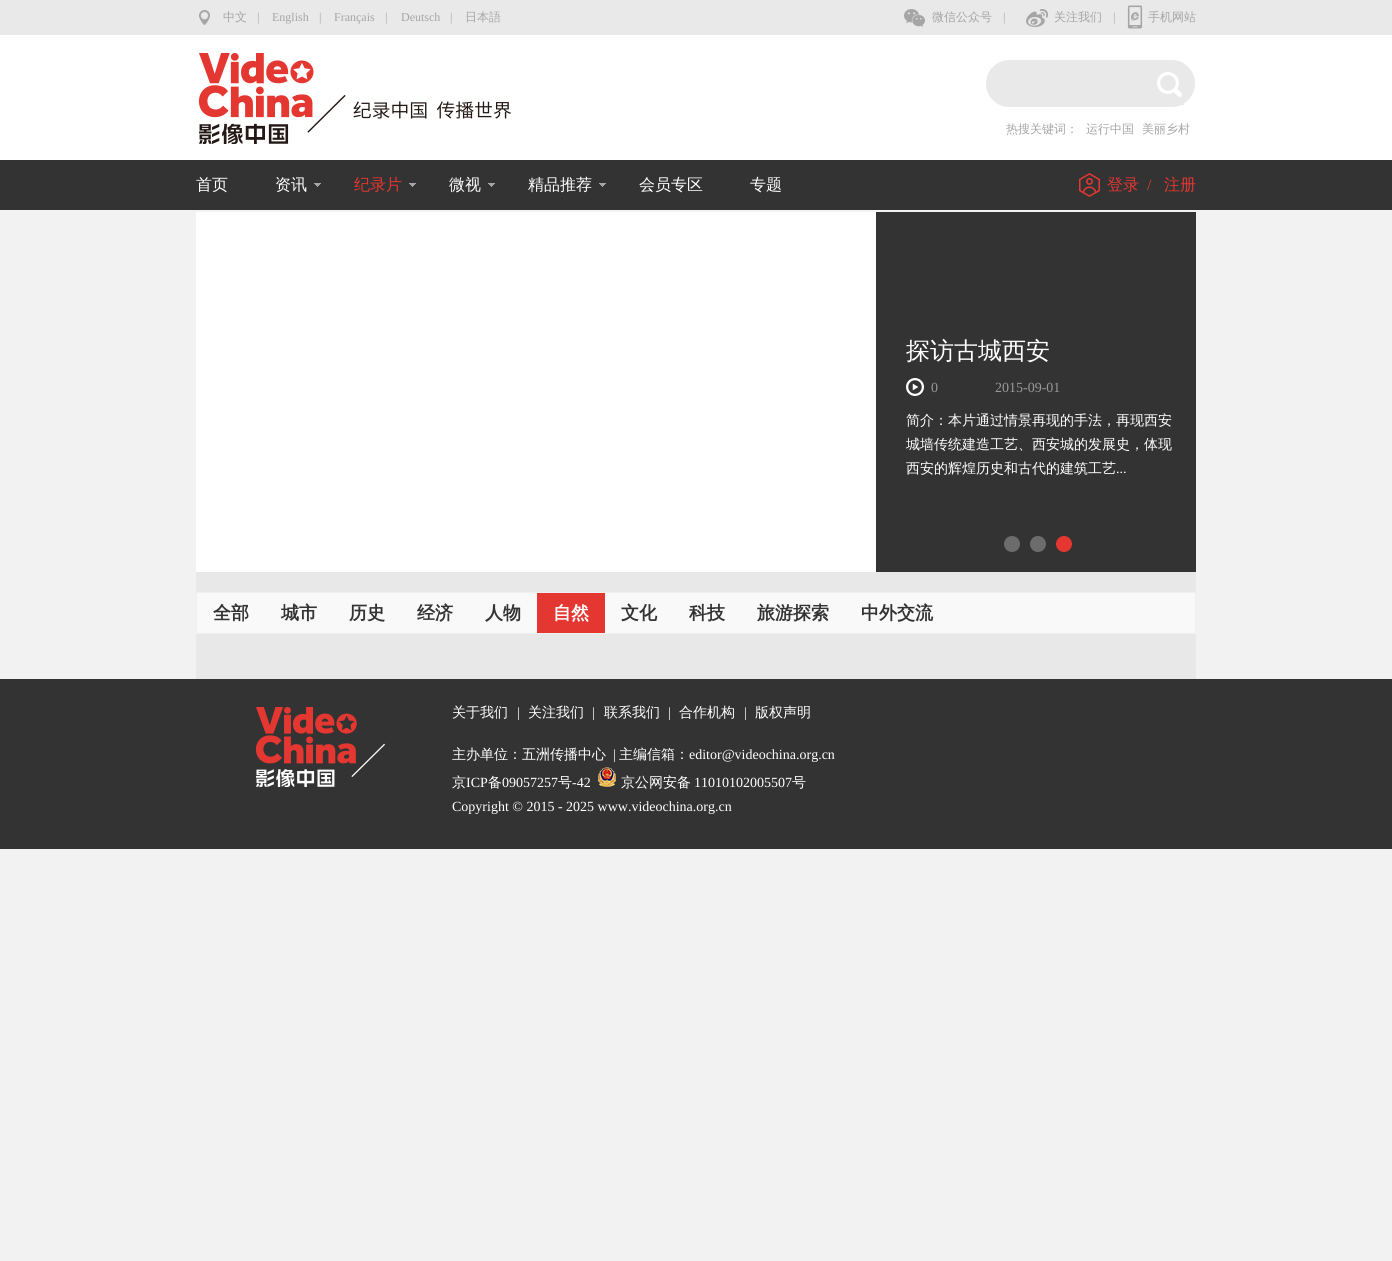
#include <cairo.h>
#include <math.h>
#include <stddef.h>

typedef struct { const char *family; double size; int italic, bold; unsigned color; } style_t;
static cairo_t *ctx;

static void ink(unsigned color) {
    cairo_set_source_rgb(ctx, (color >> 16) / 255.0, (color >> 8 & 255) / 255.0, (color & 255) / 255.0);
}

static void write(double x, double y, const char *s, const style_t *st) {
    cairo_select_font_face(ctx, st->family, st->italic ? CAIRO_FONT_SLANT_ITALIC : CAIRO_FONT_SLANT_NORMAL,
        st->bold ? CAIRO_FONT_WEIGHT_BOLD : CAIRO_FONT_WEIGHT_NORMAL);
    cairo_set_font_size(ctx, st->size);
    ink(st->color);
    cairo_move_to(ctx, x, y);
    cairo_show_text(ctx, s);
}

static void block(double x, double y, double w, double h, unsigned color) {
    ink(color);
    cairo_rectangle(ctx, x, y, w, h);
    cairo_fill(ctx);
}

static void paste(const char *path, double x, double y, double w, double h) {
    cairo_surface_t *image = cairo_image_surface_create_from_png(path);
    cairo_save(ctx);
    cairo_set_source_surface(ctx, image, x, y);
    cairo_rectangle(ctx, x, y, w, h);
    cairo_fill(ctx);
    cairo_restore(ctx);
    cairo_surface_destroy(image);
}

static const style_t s1 = {"WenQuanYi Zen Hei Medium", 12, 0, 0, 0xa5a5a5};
static const style_t s2 = {"Liberation Serif", 12, 0, 0, 0xa5a5a5};
static const style_t s3 = {"WenQuanYi Zen Hei Medium", 16, 0, 0, 0xffffff};
static const style_t s4 = {"WenQuanYi Zen Hei Medium", 16, 0, 0, 0xe43731};
static const style_t s5 = {"Liberation Serif", 16, 0, 0, 0xe43731};
static const style_t s6 = {"WenQuanYi Zen Hei Medium", 24, 0, 0, 0xffffff};
static const style_t s7 = {"Liberation Serif", 14, 0, 0, 0x999999};
static const style_t s8 = {"WenQuanYi Zen Hei Medium", 14, 0, 0, 0xffffff};
static const style_t s9 = {"Liberation Serif", 14, 0, 0, 0xffffff};
static const style_t s10 = {"WenQuanYi Zen Hei", 18, 0, 1, 0x333333};
static const style_t s11 = {"WenQuanYi Zen Hei", 18, 0, 1, 0xffffff};

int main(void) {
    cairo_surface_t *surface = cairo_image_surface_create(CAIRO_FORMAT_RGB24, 1392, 1261);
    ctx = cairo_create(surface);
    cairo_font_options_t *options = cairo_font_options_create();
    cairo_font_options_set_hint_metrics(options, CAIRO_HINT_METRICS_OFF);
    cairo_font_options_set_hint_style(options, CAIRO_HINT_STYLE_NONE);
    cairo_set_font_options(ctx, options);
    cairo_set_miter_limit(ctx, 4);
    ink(0xf2f2f2);
    cairo_paint(ctx);
    block(0, 0, 1392, 35, 0xe9e9e9);
    paste("pic1.png", 199, 10, 11, 15);
    write(223, 21, "中文", &s1);
    write(257, 21, "|", &s2);
    write(272, 21, "English", &s2);
    write(319, 21, "|", &s2);
    write(334, 21, "Français", &s2);
    write(385, 21, "|", &s2);
    write(401, 21, "Deutsch", &s2);
    write(450, 21, "|", &s2);
    write(465, 21, "日本語", &s1);
    paste("pic2.png", 904, 9, 21, 18);
    write(932, 21, "微信公众号", &s1);
    write(1003, 21, "|", &s2);
    paste("pic3.png", 1026, 9, 22, 18);
    write(1054, 21, "关注我们", &s1);
    write(1113, 21, "|", &s2);
    paste("pic4.png", 1127, 5, 16, 24);
    write(1148, 21, "手机网站", &s1);
    block(0, 35, 1392, 125, 0xffffff);
    paste("pic5.png", 199, 53, 312, 91);
    paste("pic6.png", 986, 60, 209, 47);
    paste("pic7.png", 1157, 72, 27, 33);
    write(1006, 133, "热搜关键词：", &s1);
    write(1086, 133, "运行中国", &s1);
    write(1142, 133, "美丽乡村", &s1);
    block(0, 160, 1392, 50, 0x333333);
    write(196, 190, "首页", &s3);
    write(275, 190, "资讯", &s3);
    paste("pic8.png", 314, 183, 7, 4);
    write(354, 190, "纪录片", &s4);
    paste("pic8.png", 409, 183, 7, 4);
    write(449, 190, "微视", &s3);
    paste("pic8.png", 488, 183, 7, 4);
    write(528, 190, "精品推荐", &s3);
    paste("pic8.png", 599, 183, 7, 4);
    write(639, 190, "会员专区", &s3);
    write(750, 190, "专题", &s3);
    paste("pic9.png", 1079, 173, 21, 24);
    write(1107, 190, "登录", &s4);
    write(1147, 190, "/", &s5);
    write(1164, 190, "注册", &s4);
    block(196, 212, 680, 360, 0xffffff);
    block(876, 212, 320, 360, 0x333333);
    write(906, 359, "探访古城西安", &s6);
    paste("pic10.png", 906, 378, 18, 18);
    write(931, 392, "0", &s7);
    write(995, 392, "2015-09-01", &s7);
    write(906, 425, "简介：本片通过情景再现的手法，再现西安", &s8);
    write(906, 449, "城墙传统建造工艺、西安城的发展史，体现", &s8);
    write(906, 473, "西安的辉煌历史和古代的建筑工艺", &s8);
    write(1116, 473, "...", &s9);
    paste("pic11.png", 1004, 536, 16, 16);
    paste("pic11.png", 1030, 536, 16, 16);
    paste("pic12.png", 1056, 536, 16, 16);
    block(196, 572, 1000, 107, 0xe8e8e8);
    ink(0xf9f9f9);
    cairo_rectangle(ctx, 196.5, 592.5, 999, 41);
    cairo_fill_preserve(ctx);
    ink(0xefefef);
    cairo_set_line_width(ctx, 1);
    cairo_stroke(ctx);
    write(213, 619, "全部", &s10);
    write(281, 619, "城市", &s10);
    write(349, 619, "历史", &s10);
    write(417, 619, "经济", &s10);
    write(485, 619, "人物", &s10);
    block(537, 593, 68, 40, 0xe43731);
    write(553, 619, "自然", &s11);
    write(621, 619, "文化", &s10);
    write(689, 619, "科技", &s10);
    write(757, 619, "旅游探索", &s10);
    write(861, 619, "中外交流", &s10);
    block(0, 679, 1392, 170, 0x333333);
    paste("pic13.png", 256, 707, 129, 80);
    write(452, 717, "关于我们", &s8);
    write(517, 717, "|", &s9);
    write(528, 717, "关注我们", &s8);
    write(592, 717, "|", &s9);
    write(604, 717, "联系我们", &s8);
    write(668, 717, "|", &s9);
    write(679, 717, "合作机构", &s8);
    write(744, 717, "|", &s9);
    write(755, 717, "版权声明", &s8);
    write(452, 759, "主办单位：五洲传播中心", &s8);
    write(613, 759, "|", &s9);
    write(619, 759, "主编信箱：", &s8);
    write(689, 759, "editor@videochina.org.cn", &s9);
    write(452, 787, "京", &s8);
    write(466, 787, "ICP", &s9);
    write(488, 787, "备", &s8);
    write(502, 787, "09057257", &s9);
    write(558, 787, "号", &s8);
    write(572, 787, "-42", &s9);
    paste("pic14.png", 598, 767, 18, 20);
    write(621, 787, "京公网安备", &s8);
    write(694, 787, "11010102005507", &s9);
    write(792, 787, "号", &s8);
    write(452, 811, "Copyright © 2015 - 2025 www.videochina.org.cn", &s9);
    cairo_surface_write_to_png(surface, "screenshot.png");
    cairo_font_options_destroy(options);
    cairo_destroy(ctx);
    cairo_surface_destroy(surface);
    return 0;
}
